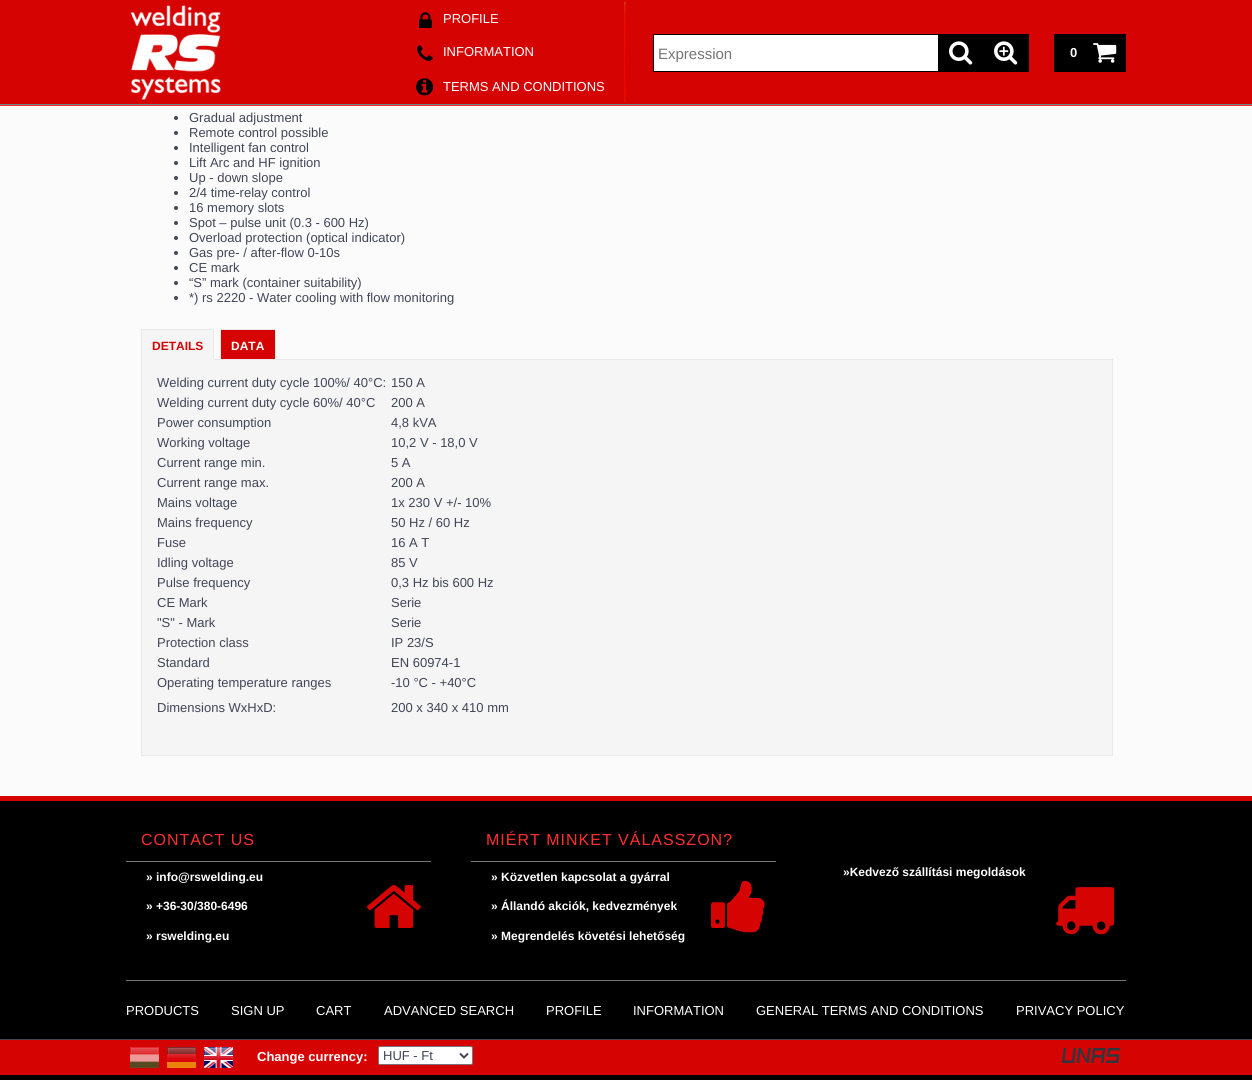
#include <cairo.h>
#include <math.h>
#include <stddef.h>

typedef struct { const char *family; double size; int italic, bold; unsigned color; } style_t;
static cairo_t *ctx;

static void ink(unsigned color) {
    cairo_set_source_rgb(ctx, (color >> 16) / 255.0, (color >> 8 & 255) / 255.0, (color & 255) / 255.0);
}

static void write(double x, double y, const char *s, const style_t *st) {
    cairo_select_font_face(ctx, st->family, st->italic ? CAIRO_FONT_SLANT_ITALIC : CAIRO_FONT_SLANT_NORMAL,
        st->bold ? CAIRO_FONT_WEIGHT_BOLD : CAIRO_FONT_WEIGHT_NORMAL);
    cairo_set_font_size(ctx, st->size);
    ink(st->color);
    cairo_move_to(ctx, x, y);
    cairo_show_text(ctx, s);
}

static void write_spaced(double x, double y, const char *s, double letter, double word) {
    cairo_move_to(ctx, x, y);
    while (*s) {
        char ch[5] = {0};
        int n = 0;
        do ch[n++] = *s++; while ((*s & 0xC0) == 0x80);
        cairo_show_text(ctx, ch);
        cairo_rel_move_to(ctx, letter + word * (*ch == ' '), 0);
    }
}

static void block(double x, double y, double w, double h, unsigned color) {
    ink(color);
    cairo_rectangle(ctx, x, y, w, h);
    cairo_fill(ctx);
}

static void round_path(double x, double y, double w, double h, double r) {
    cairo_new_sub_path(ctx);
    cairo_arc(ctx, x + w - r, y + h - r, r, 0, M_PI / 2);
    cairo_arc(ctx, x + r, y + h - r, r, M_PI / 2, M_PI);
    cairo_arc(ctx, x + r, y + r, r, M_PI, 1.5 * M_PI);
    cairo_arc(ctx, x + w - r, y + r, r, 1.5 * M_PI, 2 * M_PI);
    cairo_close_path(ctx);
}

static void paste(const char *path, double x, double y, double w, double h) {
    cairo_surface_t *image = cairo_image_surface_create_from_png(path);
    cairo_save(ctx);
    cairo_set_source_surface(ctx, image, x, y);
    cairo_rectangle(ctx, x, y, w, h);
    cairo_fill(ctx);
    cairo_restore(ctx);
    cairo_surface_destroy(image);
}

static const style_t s1 = {"Liberation Sans", 13, 0, 0, 0xffffff};
static const style_t s2 = {"Liberation Sans", 15, 0, 0, 0x757575};
static const style_t s3 = {"Liberation Sans", 13, 0, 1, 0xffffff};
static const style_t s4 = {"Liberation Sans", 13, 0, 0, 0x414558};
static const style_t s5 = {"Liberation Sans", 12, 0, 1, 0xd60303};
static const style_t s6 = {"Liberation Sans", 12, 0, 1, 0xffffff};

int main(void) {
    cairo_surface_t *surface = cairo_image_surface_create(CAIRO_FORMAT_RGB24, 1252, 1080);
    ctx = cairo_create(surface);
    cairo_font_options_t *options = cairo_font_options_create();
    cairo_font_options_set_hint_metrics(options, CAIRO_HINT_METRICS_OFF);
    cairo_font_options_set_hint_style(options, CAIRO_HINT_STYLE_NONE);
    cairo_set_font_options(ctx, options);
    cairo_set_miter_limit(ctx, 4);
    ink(0xfbfbfb);
    cairo_paint(ctx);
    block(0, 0, 1252, 104, 0xd60303);
    block(0, 105, 1252, 1, 0xee2727);
    block(0, 104, 1252, 1, 0x6d8696);
    paste("pic1.png", 130, 5, 91, 95);
    paste("pic2.png", 624, 2, 2, 100);
    paste("pic3.png", 419, 12, 13, 16);
    write(443, 23, "PROFILE", &s1);
    paste("pic4.png", 417, 45, 16, 16);
    write(443, 56, "INFORMATION", &s1);
    paste("pic5.png", 416, 78, 18, 18);
    write(443, 91, "TERMS AND CONDITIONS", &s1);
    block(654, 35, 284, 36, 0xffffff);
    cairo_rectangle(ctx, 653.5, 34.5, 375, 37);
    ink(0x000000);
    cairo_set_line_width(ctx, 1);
    cairo_stroke(ctx);
    write(658, 59, "Expression", &s2);
    block(938, 35, 90, 36, 0x000000);
    paste("pic6.png", 949, 41, 24, 24);
    paste("pic7.png", 994, 41, 24, 24);
    block(1054, 34, 72, 38, 0x000000);
    write(1070, 57, "0", &s3);
    paste("pic8.png", 1093, 43, 24, 20);
    ink(0x414558);
    cairo_arc(ctx, 176, 118, 2, 0, 2 * M_PI);
    cairo_fill(ctx);
    write(189, 122, "Gradual adjustment", &s4);
    cairo_new_path(ctx);
    cairo_arc(ctx, 176, 133, 2, 0, 2 * M_PI);
    cairo_fill(ctx);
    write(189, 137, "Remote control possible", &s4);
    cairo_new_path(ctx);
    cairo_arc(ctx, 176, 148, 2, 0, 2 * M_PI);
    cairo_fill(ctx);
    write(189, 152, "Intelligent fan control", &s4);
    cairo_new_path(ctx);
    cairo_arc(ctx, 176, 163, 2, 0, 2 * M_PI);
    cairo_fill(ctx);
    write(189, 167, "Lift Arc and HF ignition", &s4);
    cairo_new_path(ctx);
    cairo_arc(ctx, 176, 178, 2, 0, 2 * M_PI);
    cairo_fill(ctx);
    write(189, 182, "Up - down slope", &s4);
    cairo_new_path(ctx);
    cairo_arc(ctx, 176, 193, 2, 0, 2 * M_PI);
    cairo_fill(ctx);
    write(189, 197, "2/4 time-relay control", &s4);
    cairo_new_path(ctx);
    cairo_arc(ctx, 176, 208, 2, 0, 2 * M_PI);
    cairo_fill(ctx);
    write(189, 212, "16 memory slots", &s4);
    cairo_new_path(ctx);
    cairo_arc(ctx, 176, 223, 2, 0, 2 * M_PI);
    cairo_fill(ctx);
    write(189, 227, "Spot – pulse unit (0.3 - 600 Hz)", &s4);
    cairo_new_path(ctx);
    cairo_arc(ctx, 176, 238, 2, 0, 2 * M_PI);
    cairo_fill(ctx);
    write(189, 242, "Overload protection (optical indicator)", &s4);
    cairo_new_path(ctx);
    cairo_arc(ctx, 176, 253, 2, 0, 2 * M_PI);
    cairo_fill(ctx);
    write(189, 257, "Gas pre- / after-flow 0-10s", &s4);
    cairo_new_path(ctx);
    cairo_arc(ctx, 176, 268, 2, 0, 2 * M_PI);
    cairo_fill(ctx);
    write(189, 272, "CE mark", &s4);
    cairo_new_path(ctx);
    cairo_arc(ctx, 176, 283, 2, 0, 2 * M_PI);
    cairo_fill(ctx);
    write(189, 287, "“S” mark (container suitability)", &s4);
    cairo_new_path(ctx);
    cairo_arc(ctx, 176, 298, 2, 0, 2 * M_PI);
    cairo_fill(ctx);
    write(189, 302, "*) rs 2220 - Water cooling with flow monitoring", &s4);
    block(142, 330, 71, 29, 0xf5f5f5);
    block(141, 329, 73, 1, 0xe9e9e7);
    ink(0xf5f5f5);
    cairo_rectangle(ctx, 141.5, 359.5, 971, 396);
    cairo_fill_preserve(ctx);
    ink(0xe9e9e7);
    cairo_stroke(ctx);
    block(213, 329, 1, 31, 0xe9e9e7);
    block(141, 359, 73, 1, 0xf5f5f5);
    block(141, 329, 1, 31, 0xe9e9e7);
    write(152, 350, "DETAILS", &s5);
    cairo_rectangle(ctx, 220.5, 329.5, 55, 30);
    cairo_fill_preserve(ctx);
    ink(0xe9e9e7);
    cairo_stroke(ctx);
    write(231, 350, "DATA", &s6);
    write(157, 387, "Welding current duty cycle 100%/ 40°C:", &s4);
    write(391, 387, "150 A", &s4);
    write(157, 407, "Welding current duty cycle 60%/ 40°C", &s4);
    write(391, 407, "200 A", &s4);
    write(157, 427, "Power consumption", &s4);
    write(391, 427, "4,8 kVA", &s4);
    write(157, 447, "Working voltage", &s4);
    write(391, 447, "10,2 V - 18,0 V", &s4);
    write(157, 467, "Current range min.", &s4);
    write(391, 467, "5 A", &s4);
    write(157, 487, "Current range max.", &s4);
    write(391, 487, "200 A", &s4);
    write(157, 507, "Mains voltage", &s4);
    write(391, 507, "1x 230 V +/- 10%", &s4);
    write(157, 527, "Mains frequency", &s4);
    write(391, 527, "50 Hz / 60 Hz", &s4);
    write(157, 547, "Fuse", &s4);
    write(391, 547, "16 A T", &s4);
    write(157, 567, "Idling voltage", &s4);
    write(391, 567, "85 V", &s4);
    write(157, 587, "Pulse frequency", &s4);
    write(391, 587, "0,3 Hz bis 600 Hz", &s4);
    write(157, 607, "CE Mark", &s4);
    write(391, 607, "Serie", &s4);
    write(157, 627, "\"S\" - Mark", &s4);
    write(391, 627, "Serie", &s4);
    write(157, 647, "Protection class", &s4);
    write(391, 647, "IP 23/S", &s4);
    write(157, 667, "Standard", &s4);
    write(391, 667, "EN 60974-1", &s4);
    write(157, 687, "Operating temperature ranges", &s4);
    write(391, 687, "-10 °C - +40°C", &s4);
    write(157, 712, "Dimensions WxHxD:", &s4);
    write(391, 712, "200 x 340 x 410 mm", &s4);
    block(0, 796, 1252, 5, 0xd60303);
    block(0, 801, 1252, 238, 0x000000);
    block(0, 1039, 1252, 1, 0x414550);
    block(126, 980, 1000, 1, 0x777676);
    block(126, 861, 305, 1, 0x777676);
    cairo_set_font_size(ctx, 16);
    ink(0xff2f2f);
    write_spaced(141, 845, "CONTACT US", 1, 0);
    write(146, 881, "» info@rswelding.eu", &s6);
    write(146, 910, "» +36-30/380-6496", &s6);
    write(146, 940, "» rswelding.eu", &s6);
    paste("pic9.png", 366, 885, 55, 43);
    block(471, 861, 305, 1, 0x777676);
    cairo_select_font_face(ctx, "Liberation Sans", CAIRO_FONT_SLANT_NORMAL, CAIRO_FONT_WEIGHT_NORMAL);
    cairo_set_font_size(ctx, 16);
    ink(0xff2f2f);
    write_spaced(486, 845, "MIÉRT MINKET VÁLASSZON?", 1, 0);
    write(491, 881, "» Közvetlen kapcsolat a gyárral", &s6);
    write(491, 910, "» Állandó akciók, kedvezmények", &s6);
    write(491, 940, "» Megrendelés követési lehetőség", &s6);
    paste("pic10.png", 711, 880, 54, 53);
    write(843, 876, "»Kedvező szállítási megoldások", &s6);
    paste("pic11.png", 1056, 887, 58, 48);
    write(126, 1015, "PRODUCTS", &s1);
    write(231, 1015, "SIGN UP", &s1);
    write(316, 1015, "CART", &s1);
    write(384, 1015, "ADVANCED SEARCH", &s1);
    write(546, 1015, "PROFILE", &s1);
    write(633, 1015, "INFORMATION", &s1);
    write(756, 1015, "GENERAL TERMS AND CONDITIONS", &s1);
    write(1016, 1015, "PRIVACY POLICY", &s1);
    block(0, 1040, 1252, 35, 0xd60303);
    paste("pic12.png", 130, 1047, 29, 21);
    paste("pic13.png", 167, 1047, 29, 21);
    paste("pic14.png", 204, 1047, 29, 21);
    write(257, 1061, "Change currency:", &s3);
    round_path(378.5, 1046.5, 94, 18, 1.5);
    cairo_fill_preserve(ctx);
    ink(0x767676);
    cairo_stroke(ctx);
    cairo_new_path(ctx);
    cairo_move_to(ctx, 460, 1053.5);
    cairo_line_to(ctx, 464, 1057.5);
    cairo_line_to(ctx, 468, 1053.5);
    ink(0x414558);
    cairo_set_line_width(ctx, 2);
    cairo_stroke(ctx);
    write(383, 1060, "HUF - Ft", &s4);
    paste("pic15.png", 1061, 1048, 60, 15);
    block(0, 1075, 1252, 5, 0x000000);
    cairo_surface_write_to_png(surface, "screenshot.png");
    cairo_font_options_destroy(options);
    cairo_destroy(ctx);
    cairo_surface_destroy(surface);
    return 0;
}
